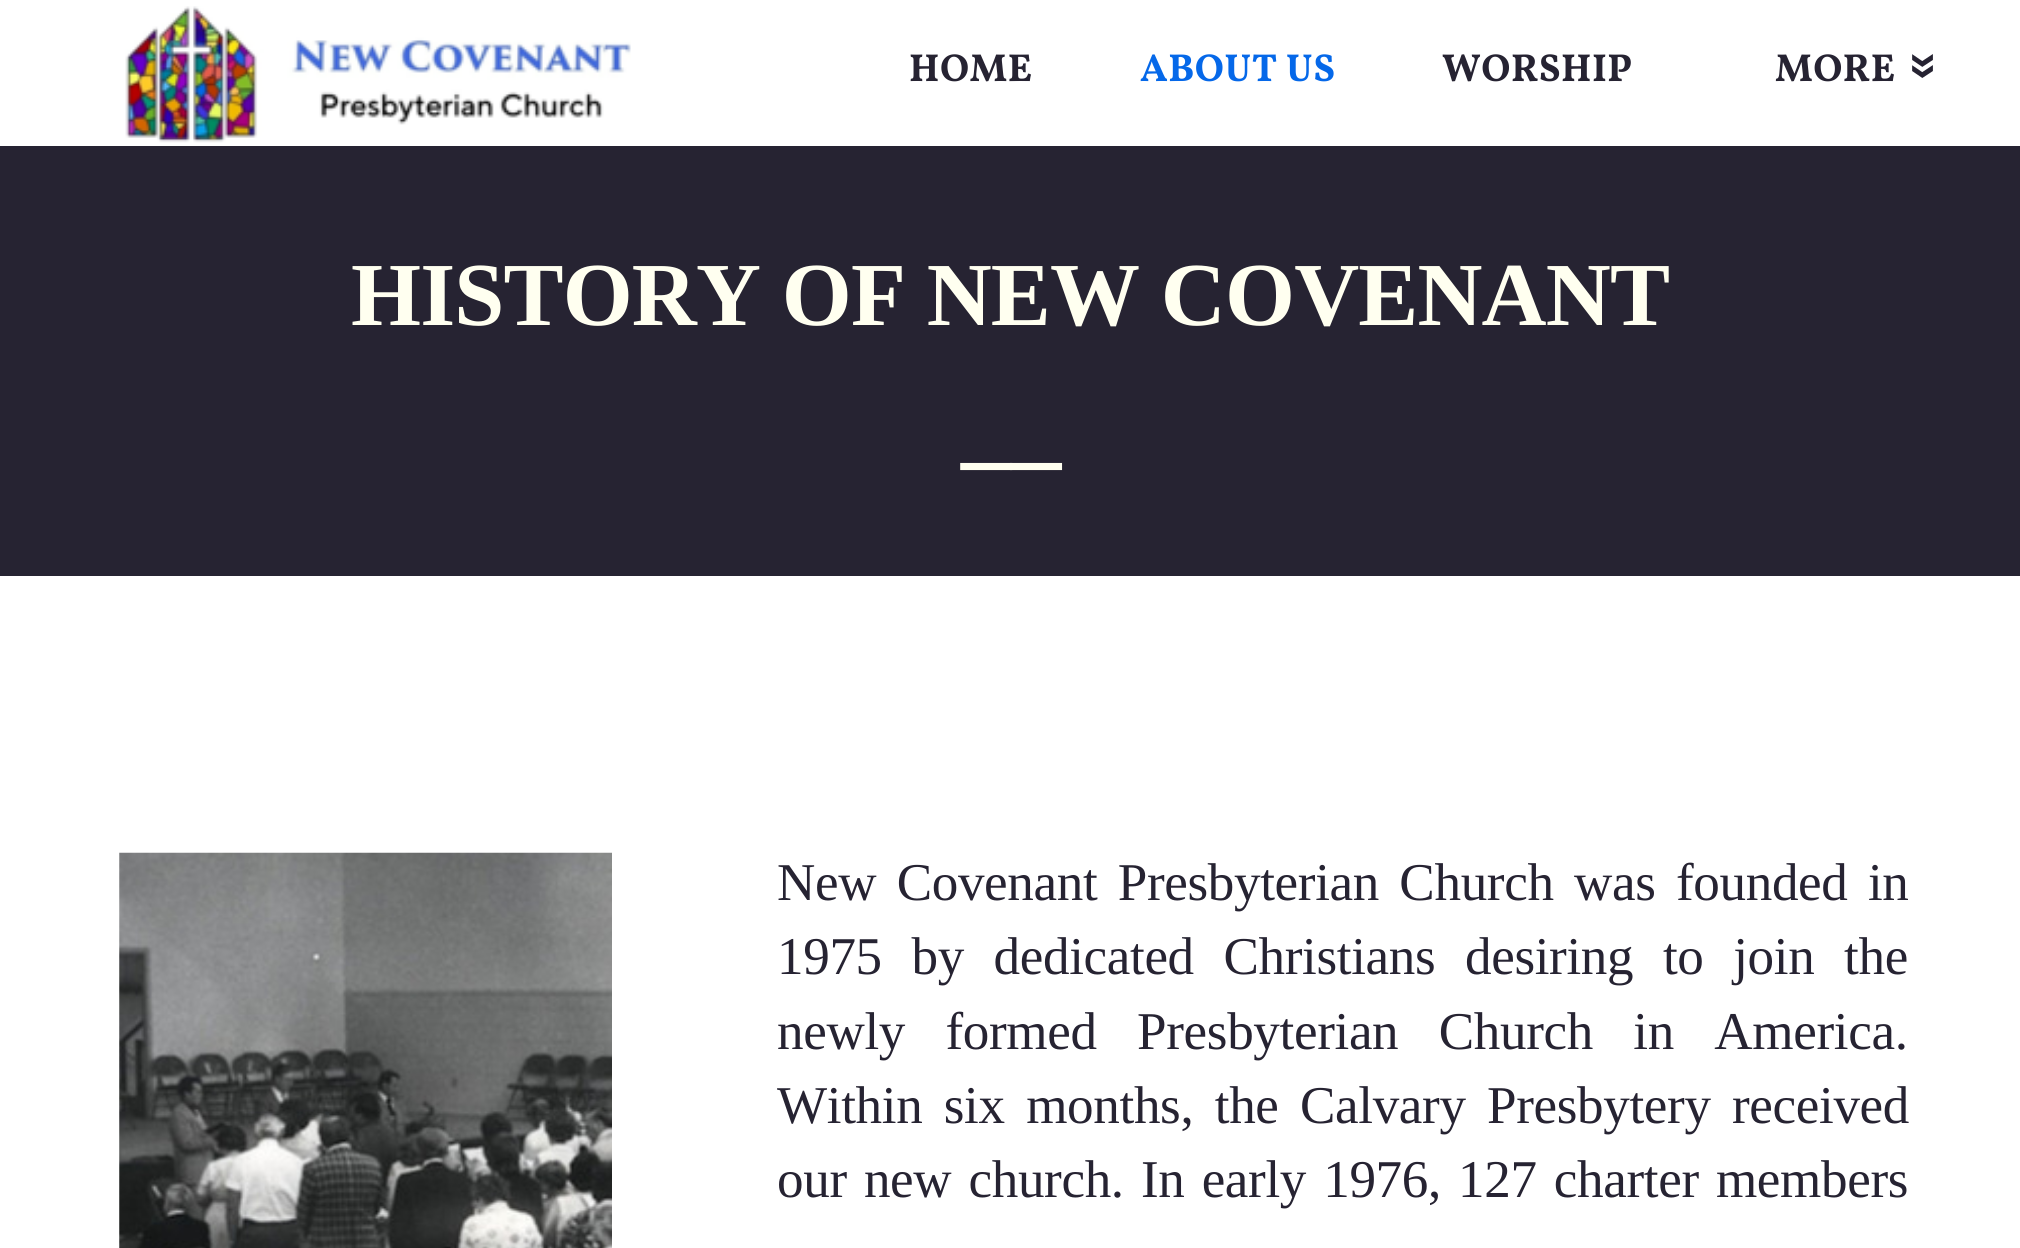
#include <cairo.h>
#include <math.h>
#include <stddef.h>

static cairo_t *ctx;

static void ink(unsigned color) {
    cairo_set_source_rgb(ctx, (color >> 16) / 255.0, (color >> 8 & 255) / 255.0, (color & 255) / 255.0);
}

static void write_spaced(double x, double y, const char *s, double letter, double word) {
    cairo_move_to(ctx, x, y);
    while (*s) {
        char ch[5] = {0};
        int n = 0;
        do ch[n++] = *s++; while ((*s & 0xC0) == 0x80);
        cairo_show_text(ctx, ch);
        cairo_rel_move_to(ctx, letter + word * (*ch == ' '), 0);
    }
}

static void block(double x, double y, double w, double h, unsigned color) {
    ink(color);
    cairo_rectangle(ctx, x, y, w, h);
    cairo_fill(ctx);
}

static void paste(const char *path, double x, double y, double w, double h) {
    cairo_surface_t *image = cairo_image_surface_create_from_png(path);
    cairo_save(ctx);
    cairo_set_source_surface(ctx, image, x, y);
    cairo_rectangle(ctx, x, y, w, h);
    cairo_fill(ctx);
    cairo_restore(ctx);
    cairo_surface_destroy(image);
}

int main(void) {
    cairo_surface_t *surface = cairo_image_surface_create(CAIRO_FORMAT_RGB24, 2020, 1248);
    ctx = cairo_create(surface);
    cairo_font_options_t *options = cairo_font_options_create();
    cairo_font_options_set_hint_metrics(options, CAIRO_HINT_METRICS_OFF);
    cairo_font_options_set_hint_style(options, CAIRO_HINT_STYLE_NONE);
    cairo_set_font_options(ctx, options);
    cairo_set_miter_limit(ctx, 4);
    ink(0x262332);
    cairo_paint(ctx);
    block(0, 0, 2020, 146, 0xffffff);
    paste("pic1.png", 125, 6, 506, 137);
    cairo_select_font_face(ctx, "Vollkorn", CAIRO_FONT_SLANT_NORMAL, CAIRO_FONT_WEIGHT_BOLD);
    cairo_set_font_size(ctx, 39);
    ink(0x262332);
    write_spaced(909, 81, "HOME", 0.5, 0);
    ink(0x0568e9);
    write_spaced(1140, 81, "ABOUT US", 0.5, 0);
    ink(0x262332);
    write_spaced(1442, 81, "WORSHIP", 0.5, 0);
    write_spaced(1775, 81, "MORE", 0.5, 0);
    paste("pic2.png", 1912, 54, 21, 24);
    cairo_select_font_face(ctx, "Liberation Serif", CAIRO_FONT_SLANT_NORMAL, CAIRO_FONT_WEIGHT_BOLD);
    cairo_set_font_size(ctx, 90);
    ink(0xfffff0);
    write_spaced(351, 325, "HISTORY OF NEW COVENANT", -0.85, 0);
    cairo_set_font_size(ctx, 101);
    write_spaced(961, 456, "__", -0.85, 0);
    block(0, 576, 2020, 672, 0xffffff);
    paste("pic3.png", 119, 852, 493, 396);
    cairo_select_font_face(ctx, "Liberation Serif", CAIRO_FONT_SLANT_NORMAL, CAIRO_FONT_WEIGHT_NORMAL);
    cairo_set_font_size(ctx, 53.1);
    ink(0x262332);
    write_spaced(777, 900, "New Covenant Presbyterian Church was founded in", -0.35, 7.5);
    write_spaced(777, 974, "1975 by dedicated Christians desiring to join the", -0.35, 16.75);
    write_spaced(777, 1049, "newly formed Presbyterian Church in America.", -0.35, 27.5);
    write_spaced(777, 1123, "Within six months, the Calvary Presbytery received", -0.35, 8.5);
    write_spaced(777, 1197, "our new church. In early 1976, 127 charter members", -0.35, 4.25);
    cairo_surface_write_to_png(surface, "screenshot.png");
    cairo_font_options_destroy(options);
    cairo_destroy(ctx);
    cairo_surface_destroy(surface);
    return 0;
}
